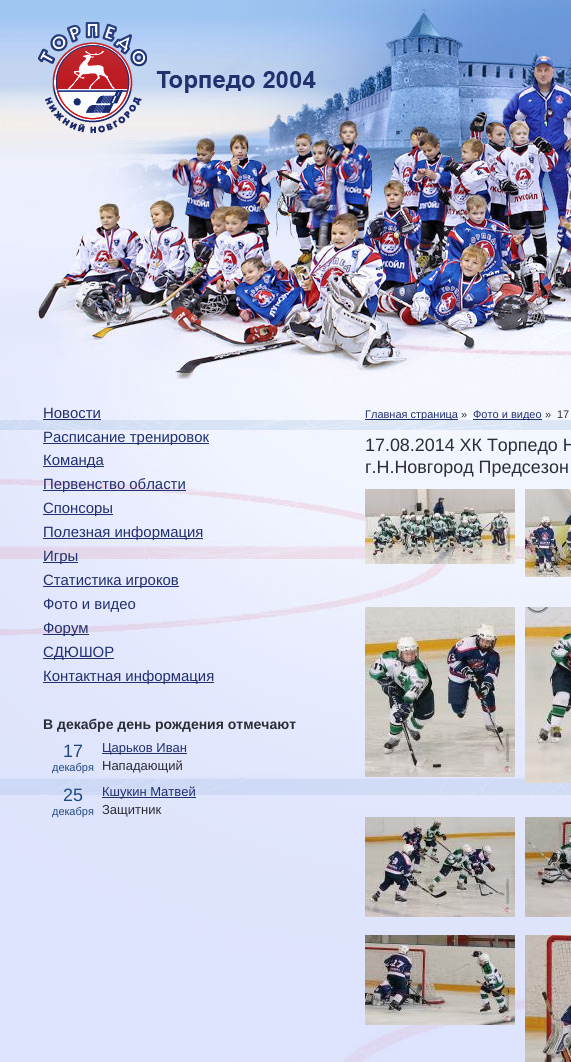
#include <cairo.h>
#include <math.h>
#include <stddef.h>

typedef struct { const char *family; double size; int italic, bold; unsigned color; } style_t;
static cairo_t *ctx;

static void ink(unsigned color) {
    cairo_set_source_rgb(ctx, (color >> 16) / 255.0, (color >> 8 & 255) / 255.0, (color & 255) / 255.0);
}

static void write(double x, double y, const char *s, const style_t *st) {
    cairo_select_font_face(ctx, st->family, st->italic ? CAIRO_FONT_SLANT_ITALIC : CAIRO_FONT_SLANT_NORMAL,
        st->bold ? CAIRO_FONT_WEIGHT_BOLD : CAIRO_FONT_WEIGHT_NORMAL);
    cairo_set_font_size(ctx, st->size);
    ink(st->color);
    cairo_move_to(ctx, x, y);
    cairo_show_text(ctx, s);
}

static void block(double x, double y, double w, double h, unsigned color) {
    ink(color);
    cairo_rectangle(ctx, x, y, w, h);
    cairo_fill(ctx);
}

static void paste(const char *path, double x, double y, double w, double h) {
    cairo_surface_t *image = cairo_image_surface_create_from_png(path);
    cairo_save(ctx);
    cairo_set_source_surface(ctx, image, x, y);
    cairo_rectangle(ctx, x, y, w, h);
    cairo_fill(ctx);
    cairo_restore(ctx);
    cairo_surface_destroy(image);
}

static const style_t s1 = {"Liberation Sans", 14.9, 0, 0, 0x21306e};
static const style_t s2 = {"Liberation Sans", 14, 0, 1, 0x2c2c34};
static const style_t s3 = {"Liberation Sans", 17.9, 0, 0, 0x1f497d};
static const style_t s4 = {"Liberation Sans", 11, 0, 0, 0x1f497d};
static const style_t s5 = {"Liberation Sans", 13, 0, 0, 0x21306e};
static const style_t s6 = {"Liberation Sans", 13, 0, 0, 0x2c2c34};
static const style_t s7 = {"Liberation Sans", 11, 0, 0, 0x21306e};
static const style_t s8 = {"Liberation Sans", 11, 0, 0, 0x2c2c34};
static const style_t s9 = {"Liberation Sans", 17.9, 0, 0, 0x2c2c34};

int main(void) {
    cairo_surface_t *surface = cairo_image_surface_create(CAIRO_FORMAT_RGB24, 571, 1062);
    ctx = cairo_create(surface);
    cairo_font_options_t *options = cairo_font_options_create();
    cairo_font_options_set_hint_metrics(options, CAIRO_HINT_METRICS_OFF);
    cairo_font_options_set_hint_style(options, CAIRO_HINT_STYLE_NONE);
    cairo_set_font_options(ctx, options);
    cairo_set_miter_limit(ctx, 4);
    ink(0xffffff);
    cairo_paint(ctx);
    paste("pic1.png", 0, 420, 571, 642);
    paste("pic3.png", 0, 0, 571, 420);
    paste("pic2.png", 38, 22, 278, 111);
    write(43, 418, "Новости", &s1);
    block(43, 419, 58, 1, 0x21306e);
    block(43, 443, 166, 1, 0x21306e);
    write(43, 442, "Расписание тренировок", &s1);
    block(43, 466, 61, 1, 0x21306e);
    write(43, 465, "Команда", &s1);
    block(43, 490, 143, 1, 0x21306e);
    write(43, 489, "Первенство области", &s1);
    block(43, 514, 70, 1, 0x21306e);
    write(43, 513, "Спонсоры", &s1);
    block(43, 538, 160, 1, 0x21306e);
    write(43, 537, "Полезная информация", &s1);
    block(43, 562, 35, 1, 0x21306e);
    write(43, 561, "Игры", &s1);
    block(43, 586, 136, 1, 0x21306e);
    write(43, 585, "Статистика игроков", &s1);
    write(43, 609, "Фото и видео", &s1);
    block(43, 634, 46, 1, 0x21306e);
    write(43, 633, "Форум", &s1);
    block(43, 658, 71, 1, 0x21306e);
    write(43, 657, "СДЮШОР", &s1);
    block(43, 682, 171, 1, 0x21306e);
    write(43, 681, "Контактная информация", &s1);
    write(43, 729, "В декабре день рождения отмечают", &s2);
    write(63, 757, "17", &s3);
    write(52, 771, "декабря", &s4);
    block(102, 753, 85, 1, 0x21306e);
    write(102, 752, "Царьков Иван", &s5);
    write(102, 770, "Нападающий", &s6);
    write(63, 801, "25", &s3);
    write(52, 815, "декабря", &s4);
    block(102, 797, 94, 1, 0x21306e);
    write(102, 796, "Кшукин Матвей", &s5);
    write(102, 814, "Защитник", &s6);
    block(365, 419, 93, 1, 0x21306e);
    write(365, 418, "Главная страница", &s7);
    write(461, 418, "»", &s8);
    block(473, 419, 69, 1, 0x21306e);
    write(473, 418, "Фото и видео", &s7);
    write(545, 418, "»", &s8);
    write(557, 418, "17", &s8);
    write(365, 451, "17.08.2014 ХК Торпедо Н", &s9);
    write(365, 473, "г.Н.Новгород Предсезон", &s9);
    paste("pic4.png", 365, 489, 150, 75);
    paste("pic5.png", 525, 489, 46, 88);
    paste("pic6.png", 365, 607, 150, 170);
    paste("pic7.png", 525, 607, 46, 176);
    paste("pic8.png", 365, 817, 150, 100);
    paste("pic9.png", 525, 817, 46, 100);
    paste("pic10.png", 365, 935, 150, 90);
    paste("pic11.png", 525, 935, 46, 127);
    cairo_surface_write_to_png(surface, "screenshot.png");
    cairo_font_options_destroy(options);
    cairo_destroy(ctx);
    cairo_surface_destroy(surface);
    return 0;
}
